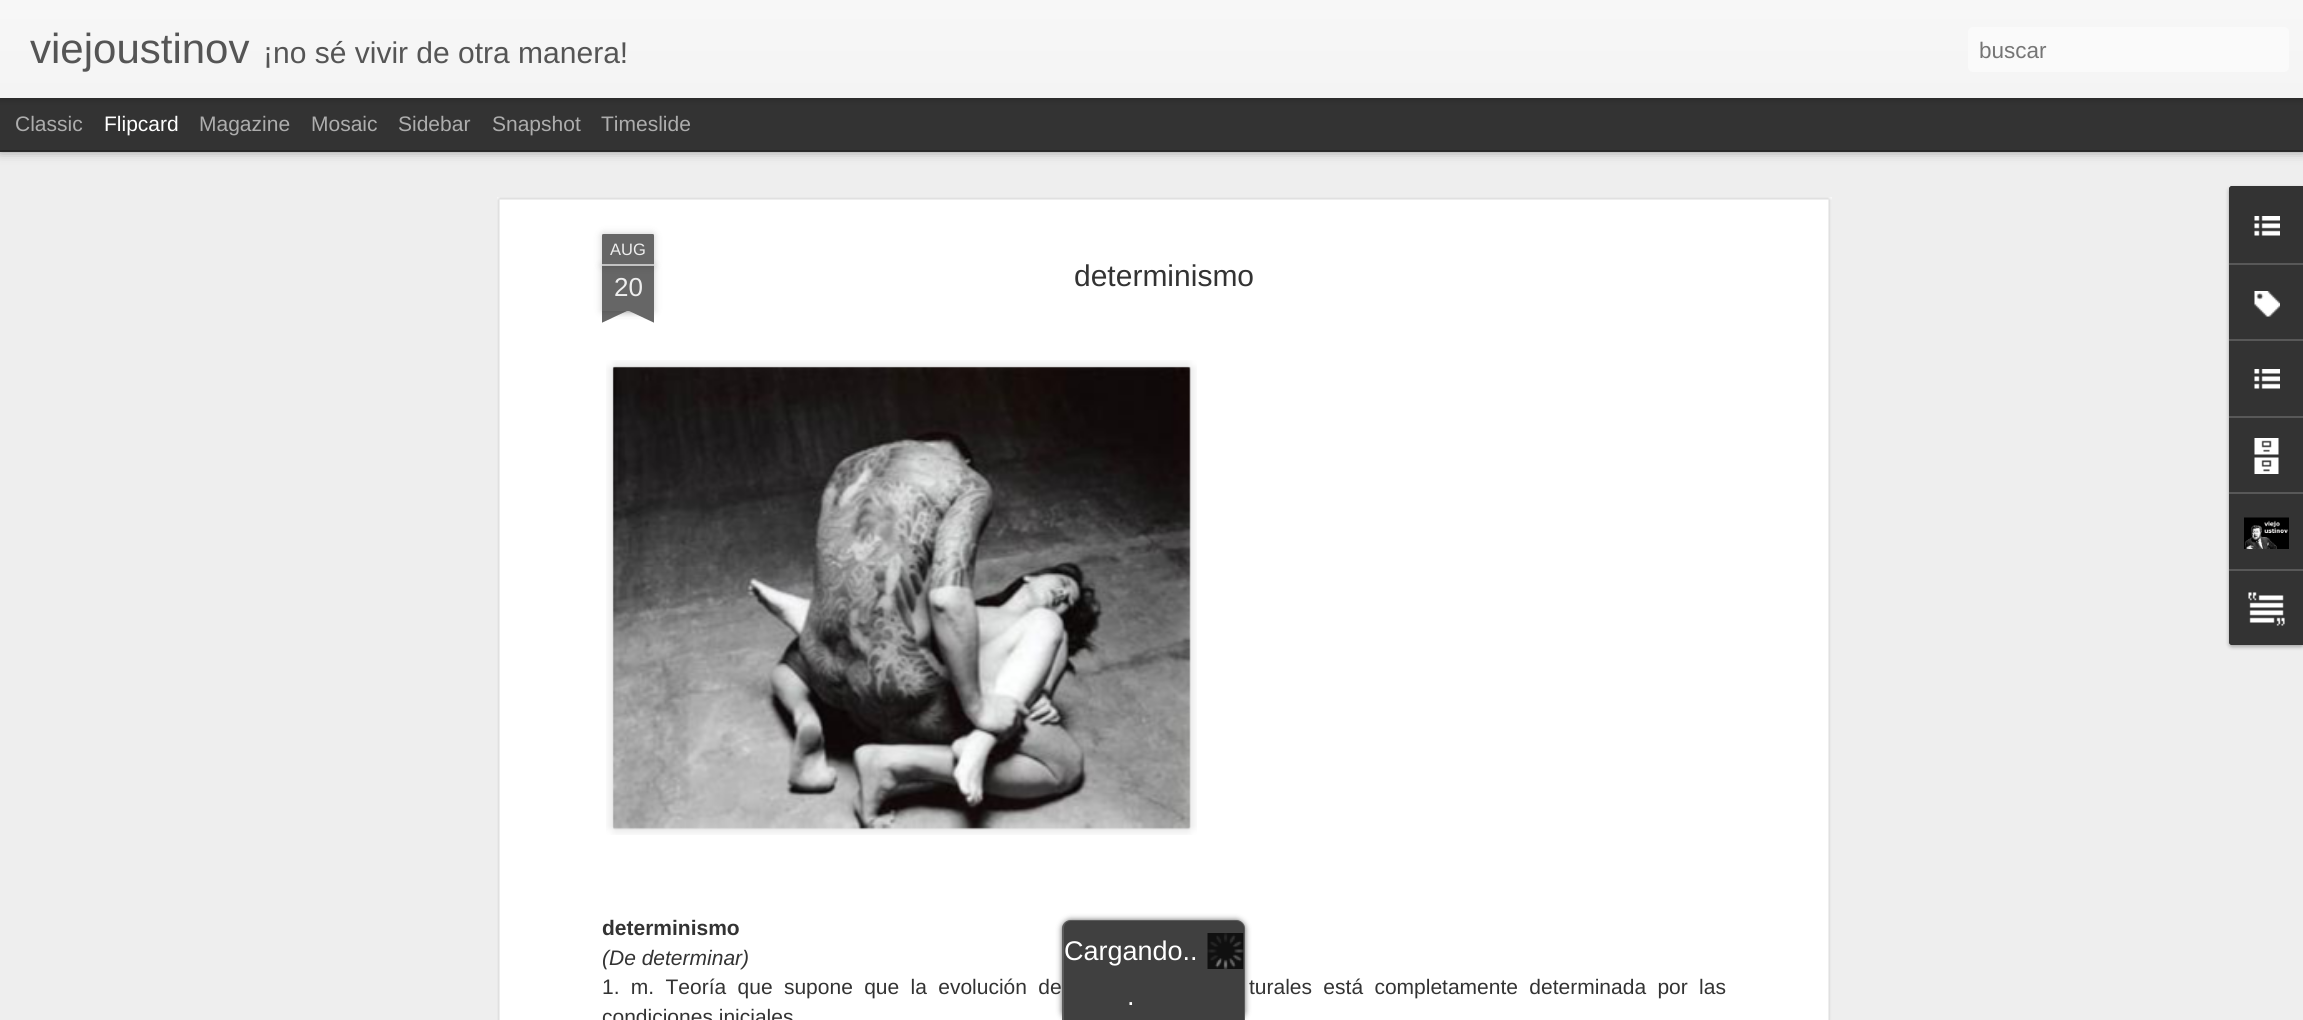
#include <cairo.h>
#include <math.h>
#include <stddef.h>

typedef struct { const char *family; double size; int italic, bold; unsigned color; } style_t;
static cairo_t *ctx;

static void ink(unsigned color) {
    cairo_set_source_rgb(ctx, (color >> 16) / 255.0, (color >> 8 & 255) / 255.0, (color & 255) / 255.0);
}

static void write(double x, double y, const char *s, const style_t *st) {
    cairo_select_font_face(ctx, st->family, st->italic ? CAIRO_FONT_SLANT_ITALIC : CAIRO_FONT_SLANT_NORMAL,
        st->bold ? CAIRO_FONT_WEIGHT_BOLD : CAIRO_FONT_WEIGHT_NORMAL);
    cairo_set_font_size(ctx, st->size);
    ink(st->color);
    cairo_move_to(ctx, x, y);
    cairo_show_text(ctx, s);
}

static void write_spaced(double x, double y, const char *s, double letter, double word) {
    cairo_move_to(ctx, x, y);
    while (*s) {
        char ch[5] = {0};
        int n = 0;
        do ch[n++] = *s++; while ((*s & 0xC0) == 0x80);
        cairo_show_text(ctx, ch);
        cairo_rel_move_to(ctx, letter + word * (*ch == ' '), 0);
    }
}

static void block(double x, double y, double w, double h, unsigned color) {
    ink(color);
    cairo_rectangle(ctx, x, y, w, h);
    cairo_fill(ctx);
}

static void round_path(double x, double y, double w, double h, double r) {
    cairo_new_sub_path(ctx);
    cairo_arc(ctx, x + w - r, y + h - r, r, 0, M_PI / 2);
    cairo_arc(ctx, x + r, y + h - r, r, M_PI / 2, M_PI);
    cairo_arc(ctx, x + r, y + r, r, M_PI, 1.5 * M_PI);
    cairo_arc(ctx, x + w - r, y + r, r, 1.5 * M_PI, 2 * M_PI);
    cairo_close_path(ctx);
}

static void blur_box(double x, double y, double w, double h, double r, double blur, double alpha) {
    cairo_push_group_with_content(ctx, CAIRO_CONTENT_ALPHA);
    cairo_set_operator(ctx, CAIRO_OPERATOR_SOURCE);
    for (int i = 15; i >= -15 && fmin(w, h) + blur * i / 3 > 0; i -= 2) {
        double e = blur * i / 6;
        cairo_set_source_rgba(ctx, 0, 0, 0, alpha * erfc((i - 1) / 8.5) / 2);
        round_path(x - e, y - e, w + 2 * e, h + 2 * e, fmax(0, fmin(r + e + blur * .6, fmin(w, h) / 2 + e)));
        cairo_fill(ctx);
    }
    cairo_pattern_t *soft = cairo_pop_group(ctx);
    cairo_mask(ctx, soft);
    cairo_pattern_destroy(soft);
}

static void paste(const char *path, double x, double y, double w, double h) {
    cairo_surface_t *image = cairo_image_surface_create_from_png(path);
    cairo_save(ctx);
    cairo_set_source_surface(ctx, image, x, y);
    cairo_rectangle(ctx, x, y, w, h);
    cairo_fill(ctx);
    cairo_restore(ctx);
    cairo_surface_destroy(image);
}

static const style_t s1 = {"Liberation Sans", 42, 0, 0, 0x555555};
static const style_t s2 = {"Liberation Sans", 30, 0, 0, 0x555555};
static const style_t s3 = {"Liberation Sans", 22.5, 0, 0, 0x757575};
static const style_t s4 = {"Liberation Sans", 21, 0, 0, 0xadadad};
static const style_t s5 = {"Liberation Sans", 21, 0, 0, 0xffffff};
static const style_t s6 = {"Liberation Sans", 16.5, 0, 0, 0xeeeeee};
static const style_t s7 = {"Liberation Sans", 26, 0, 0, 0xeeeeee};
static const style_t s8 = {"Liberation Sans", 30, 0, 0, 0x333333};
static const style_t s9 = {"Liberation Sans", 21, 0, 1, 0x333333};
static const style_t s10 = {"Liberation Sans", 21, 1, 0, 0x333333};
static const style_t s11 = {"Liberation Sans", 21, 0, 0, 0x333333};
static const style_t s12 = {"Liberation Sans", 27, 0, 0, 0xffffff};

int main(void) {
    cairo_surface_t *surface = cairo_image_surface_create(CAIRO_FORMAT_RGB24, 2303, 1020);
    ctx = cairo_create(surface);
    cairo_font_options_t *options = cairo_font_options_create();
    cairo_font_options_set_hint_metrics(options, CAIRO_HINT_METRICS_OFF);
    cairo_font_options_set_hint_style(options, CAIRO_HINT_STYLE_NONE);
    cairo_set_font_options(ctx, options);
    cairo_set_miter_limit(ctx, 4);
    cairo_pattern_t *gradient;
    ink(0x333333);
    cairo_paint(ctx);
    block(0, 152, 2303, 868, 0xeeeeee);
    ink(0x000000);
    blur_box(0, 98, 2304, 52, 0, 6, 0.5);
    block(0, 98, 2303, 52, 0x333333);
    ink(0x000000);
    blur_box(0, 0, 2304, 98, 0, 4, 0.3);
    gradient = cairo_pattern_create_linear(0, 0, 0, 98);
    cairo_pattern_add_color_stop_rgba(gradient, 0, 0.969, 0.969, 0.969, 1);
    cairo_pattern_add_color_stop_rgba(gradient, 1, 0.957, 0.957, 0.957, 1);
    cairo_set_source(ctx, gradient);
    cairo_pattern_destroy(gradient);
    cairo_rectangle(ctx, 0, 0, 2303, 98);
    cairo_fill(ctx);
    write(30, 63, "viejoustinov", &s1);
    write(263, 63, "¡no sé vivir de otra manera!", &s2);
    ink(0xfafafa);
    round_path(1968, 27, 321, 45, 5);
    cairo_fill(ctx);
    write(1979, 58, "buscar", &s3);
    write(15, 131, "Classic", &s4);
    write(104, 131, "Flipcard", &s5);
    write(199, 131, "Magazine", &s4);
    write(311, 131, "Mosaic", &s4);
    write(398, 131, "Sidebar", &s4);
    write(492, 131, "Snapshot", &s4);
    write(601, 131, "Timeslide", &s4);
    block(497, 197, 1335, 823, 0xffffff);
    paste("pic1.png", 497, 197, 1335, 823);
    ink(0x000000);
    blur_box(602, 266, 52, 45, 0, 4, 0.2);
    block(602, 266, 52, 45, 0x666666);
    ink(0x000000);
    blur_box(602, 234, 52, 32, 1.5, 4, 0.2);
    ink(0x666666);
    cairo_new_path(ctx);
    cairo_move_to(ctx, 603.5, 234);
    cairo_line_to(ctx, 652.5, 234);
    cairo_curve_to(ctx, 653.5, 234, 654, 234.5, 654, 235.5);
    cairo_line_to(ctx, 654, 266);
    cairo_line_to(ctx, 602, 266);
    cairo_line_to(ctx, 602, 235.5);
    cairo_curve_to(ctx, 602, 234.5, 602.5, 234, 603.5, 234);
    cairo_close_path(ctx);
    cairo_fill(ctx);
    block(602, 264, 52, 2, 0xc2c2c2);
    write(610, 255, "AUG", &s6);
    write(614, 296, "20", &s7);
    cairo_save(ctx);
    cairo_rectangle(ctx, 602, 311, 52, 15);
    cairo_clip(ctx);
    ink(0x000000);
    blur_box(588, 296, 75, 15, 0, 4, 0.2);
    cairo_restore(ctx);
    cairo_save(ctx);
    cairo_rectangle(ctx, 602, 311, 52, 15);
    cairo_clip(ctx);
    ink(0x666666);
    cairo_new_path(ctx);
    cairo_move_to(ctx, 588, 312);
    cairo_line_to(ctx, 656, 280);
    cairo_line_to(ctx, 663, 294);
    cairo_line_to(ctx, 595, 326);
    cairo_close_path(ctx);
    cairo_fill(ctx);
    cairo_restore(ctx);
    cairo_save(ctx);
    cairo_rectangle(ctx, 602, 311, 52, 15);
    cairo_clip(ctx);
    ink(0x000000);
    blur_box(593, 296, 75, 15, 0, 4, 0.2);
    cairo_restore(ctx);
    cairo_save(ctx);
    cairo_rectangle(ctx, 602, 311, 52, 15);
    cairo_clip(ctx);
    ink(0x666666);
    cairo_new_path(ctx);
    cairo_move_to(ctx, 599, 280);
    cairo_line_to(ctx, 667, 312);
    cairo_line_to(ctx, 661, 326);
    cairo_line_to(ctx, 593, 294);
    cairo_close_path(ctx);
    cairo_fill(ctx);
    cairo_restore(ctx);
    write(1074, 286, "determinismo", &s8);
    paste("pic2.png", 606, 360, 591, 475);
    paste("pic3.png", 612, 366, 579, 464);
    write(602, 935, "determinismo", &s9);
    write(602, 965, "(De determinar)", &s10);
    cairo_select_font_face(ctx, "Liberation Sans", CAIRO_FONT_SLANT_NORMAL, CAIRO_FONT_WEIGHT_NORMAL);
    write_spaced(602, 994, "1. m. Teoría que supone que la evolución de", 0, 5.5);
    write_spaced(1249, 994, "turales está completamente determinada por las", 0, 5.5);
    write(602, 1024, "condiciones iniciales", &s11);
    ink(0x000000);
    blur_box(2229, 188, 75, 459, 3, 2, 0.3);
    ink(0x333333);
    cairo_new_path(ctx);
    cairo_move_to(ctx, 2232, 186);
    cairo_line_to(ctx, 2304, 186);
    cairo_line_to(ctx, 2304, 645);
    cairo_line_to(ctx, 2232, 645);
    cairo_curve_to(ctx, 2230.5, 645, 2229, 643.5, 2229, 642);
    cairo_line_to(ctx, 2229, 189);
    cairo_curve_to(ctx, 2229, 187.5, 2230.5, 186, 2232, 186);
    cairo_close_path(ctx);
    cairo_fill(ctx);
    cairo_new_path(ctx);
    cairo_move_to(ctx, 2232, 186);
    cairo_line_to(ctx, 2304, 186);
    cairo_line_to(ctx, 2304, 263);
    cairo_line_to(ctx, 2229, 263);
    cairo_line_to(ctx, 2229, 189);
    cairo_curve_to(ctx, 2229, 187.5, 2230.5, 186, 2232, 186);
    cairo_close_path(ctx);
    cairo_fill(ctx);
    paste("pic4.png", 2254, 216, 26, 20);
    block(2229, 263, 74, 2, 0x585858);
    paste("pic5.png", 2254, 291, 26, 26);
    block(2229, 339, 74, 2, 0x585858);
    paste("pic4.png", 2254, 369, 26, 20);
    block(2229, 416, 74, 2, 0x585858);
    paste("pic6.png", 2254, 438, 25, 36);
    block(2229, 492, 74, 2, 0x585858);
    paste("pic7.png", 2244, 517, 45, 32);
    ink(0x333333);
    cairo_new_path(ctx);
    cairo_move_to(ctx, 2229, 569);
    cairo_line_to(ctx, 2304, 569);
    cairo_line_to(ctx, 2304, 645);
    cairo_line_to(ctx, 2232, 645);
    cairo_curve_to(ctx, 2230.5, 645, 2229, 643.5, 2229, 642);
    cairo_close_path(ctx);
    cairo_fill(ctx);
    block(2229, 569, 74, 2, 0x585858);
    paste("pic8.png", 2248, 592, 37, 34);
    cairo_save(ctx);
    cairo_set_fill_rule(ctx, CAIRO_FILL_RULE_EVEN_ODD);
    cairo_new_path(ctx);
    cairo_move_to(ctx, 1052, 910);
    cairo_line_to(ctx, 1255, 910);
    cairo_line_to(ctx, 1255, 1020);
    cairo_line_to(ctx, 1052, 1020);
    cairo_close_path(ctx);
    cairo_move_to(ctx, 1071, 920);
    cairo_line_to(ctx, 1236, 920);
    cairo_curve_to(ctx, 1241, 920, 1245, 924, 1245, 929);
    cairo_line_to(ctx, 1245, 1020);
    cairo_line_to(ctx, 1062, 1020);
    cairo_line_to(ctx, 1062, 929);
    cairo_curve_to(ctx, 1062, 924, 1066, 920, 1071, 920);
    cairo_close_path(ctx);
    cairo_clip(ctx);
    ink(0x333333);
    blur_box(1062, 920, 183, 100, 9, 3, 0.75);
    cairo_restore(ctx);
    cairo_set_source_rgba(ctx, 0, 0, 0, 0.75);
    cairo_new_path(ctx);
    cairo_move_to(ctx, 1071, 920);
    cairo_line_to(ctx, 1236, 920);
    cairo_curve_to(ctx, 1241, 920, 1245, 924, 1245, 929);
    cairo_line_to(ctx, 1245, 1020);
    cairo_line_to(ctx, 1062, 1020);
    cairo_line_to(ctx, 1062, 929);
    cairo_curve_to(ctx, 1062, 924, 1066, 920, 1071, 920);
    cairo_close_path(ctx);
    cairo_fill(ctx);
    cairo_set_source_rgba(ctx, 0.4, 0.4, 0.4, 0.75);
    cairo_set_fill_rule(ctx, CAIRO_FILL_RULE_EVEN_ODD);
    cairo_new_path(ctx);
    cairo_move_to(ctx, 1071, 920);
    cairo_line_to(ctx, 1236, 920);
    cairo_curve_to(ctx, 1241, 920, 1245, 924, 1245, 928);
    cairo_line_to(ctx, 1245, 1020);
    cairo_line_to(ctx, 1062, 1020);
    cairo_line_to(ctx, 1062, 928);
    cairo_curve_to(ctx, 1062, 924, 1066, 920, 1071, 920);
    cairo_close_path(ctx);
    cairo_move_to(ctx, 1071, 921);
    cairo_line_to(ctx, 1236, 921);
    cairo_curve_to(ctx, 1240, 921, 1244, 924, 1244, 928);
    cairo_line_to(ctx, 1244, 1020);
    cairo_line_to(ctx, 1064, 1020);
    cairo_line_to(ctx, 1064, 928);
    cairo_curve_to(ctx, 1064, 924, 1067, 921, 1071, 921);
    cairo_close_path(ctx);
    cairo_fill(ctx);
    paste("pic9.png", 1207, 933, 37, 36);
    write(1064, 960, "Cargando..", &s12);
    write(1127, 1005, ".", &s12);
    cairo_surface_write_to_png(surface, "screenshot.png");
    cairo_font_options_destroy(options);
    cairo_destroy(ctx);
    cairo_surface_destroy(surface);
    return 0;
}
